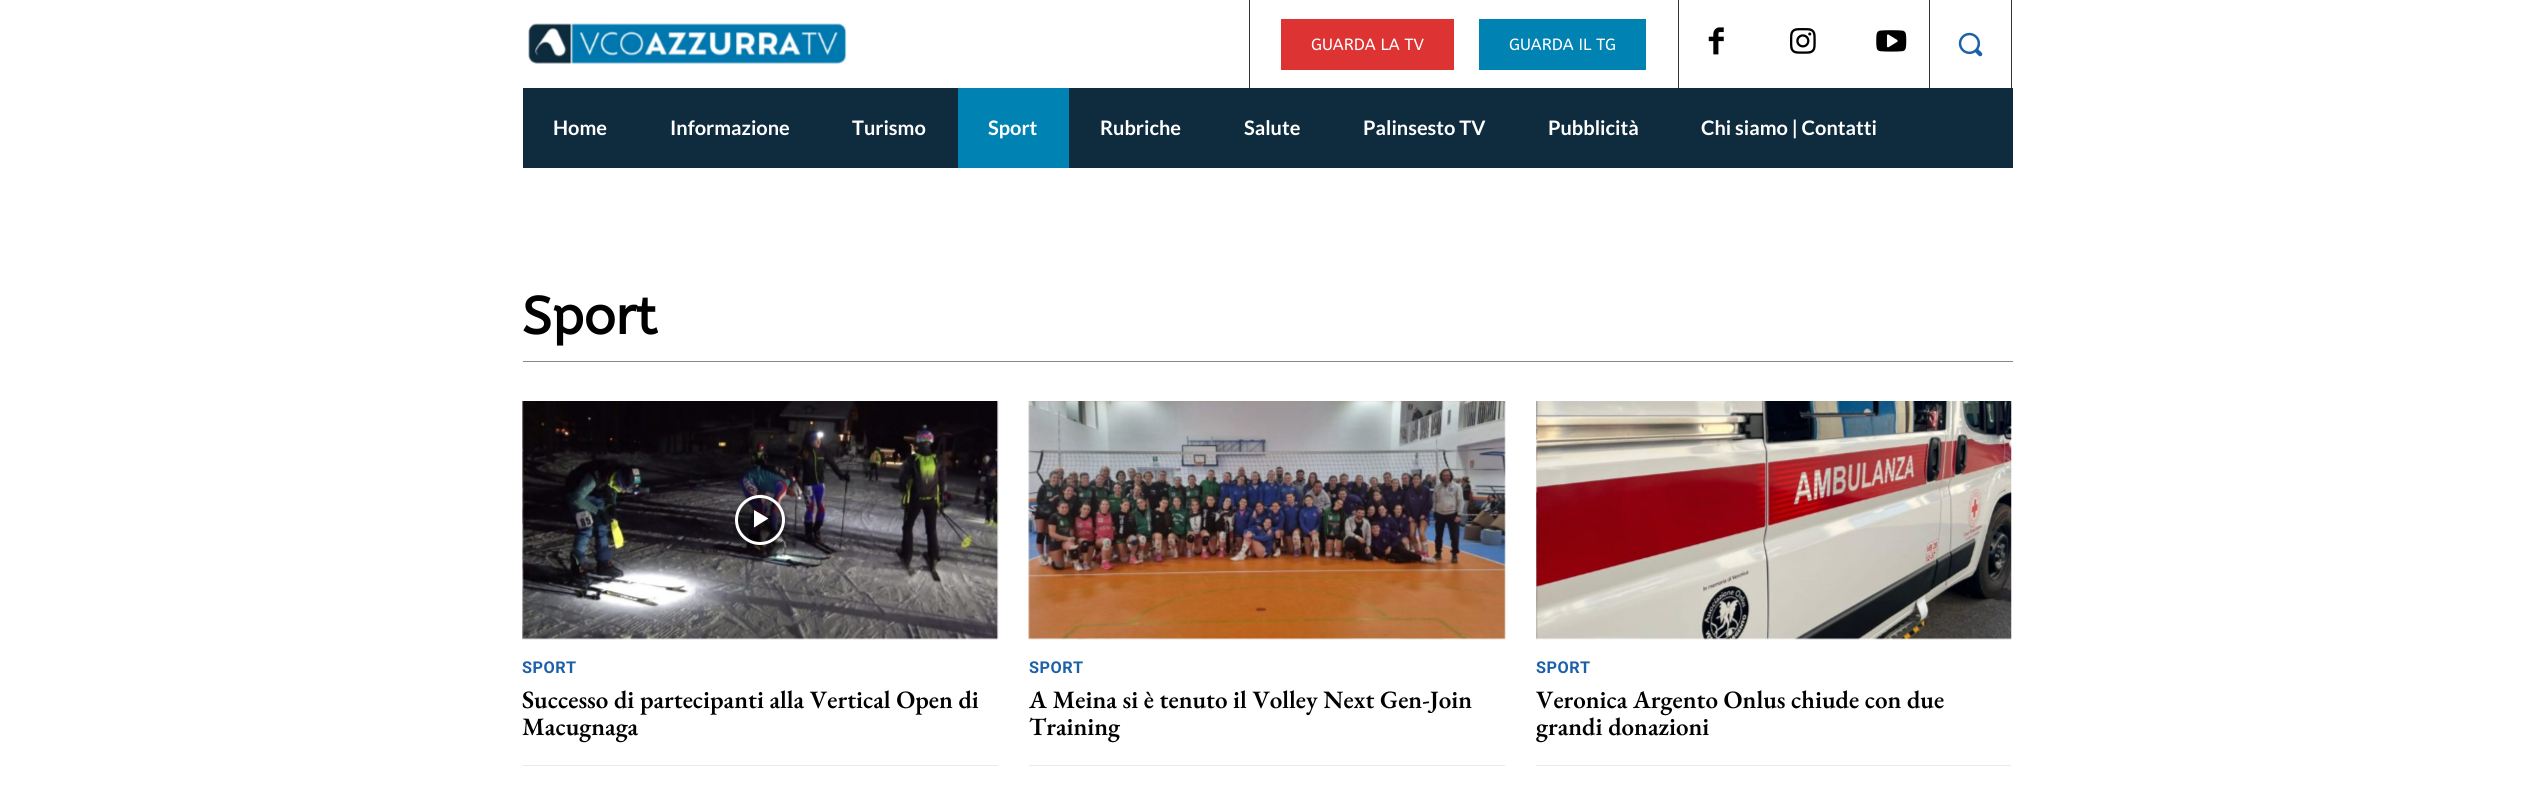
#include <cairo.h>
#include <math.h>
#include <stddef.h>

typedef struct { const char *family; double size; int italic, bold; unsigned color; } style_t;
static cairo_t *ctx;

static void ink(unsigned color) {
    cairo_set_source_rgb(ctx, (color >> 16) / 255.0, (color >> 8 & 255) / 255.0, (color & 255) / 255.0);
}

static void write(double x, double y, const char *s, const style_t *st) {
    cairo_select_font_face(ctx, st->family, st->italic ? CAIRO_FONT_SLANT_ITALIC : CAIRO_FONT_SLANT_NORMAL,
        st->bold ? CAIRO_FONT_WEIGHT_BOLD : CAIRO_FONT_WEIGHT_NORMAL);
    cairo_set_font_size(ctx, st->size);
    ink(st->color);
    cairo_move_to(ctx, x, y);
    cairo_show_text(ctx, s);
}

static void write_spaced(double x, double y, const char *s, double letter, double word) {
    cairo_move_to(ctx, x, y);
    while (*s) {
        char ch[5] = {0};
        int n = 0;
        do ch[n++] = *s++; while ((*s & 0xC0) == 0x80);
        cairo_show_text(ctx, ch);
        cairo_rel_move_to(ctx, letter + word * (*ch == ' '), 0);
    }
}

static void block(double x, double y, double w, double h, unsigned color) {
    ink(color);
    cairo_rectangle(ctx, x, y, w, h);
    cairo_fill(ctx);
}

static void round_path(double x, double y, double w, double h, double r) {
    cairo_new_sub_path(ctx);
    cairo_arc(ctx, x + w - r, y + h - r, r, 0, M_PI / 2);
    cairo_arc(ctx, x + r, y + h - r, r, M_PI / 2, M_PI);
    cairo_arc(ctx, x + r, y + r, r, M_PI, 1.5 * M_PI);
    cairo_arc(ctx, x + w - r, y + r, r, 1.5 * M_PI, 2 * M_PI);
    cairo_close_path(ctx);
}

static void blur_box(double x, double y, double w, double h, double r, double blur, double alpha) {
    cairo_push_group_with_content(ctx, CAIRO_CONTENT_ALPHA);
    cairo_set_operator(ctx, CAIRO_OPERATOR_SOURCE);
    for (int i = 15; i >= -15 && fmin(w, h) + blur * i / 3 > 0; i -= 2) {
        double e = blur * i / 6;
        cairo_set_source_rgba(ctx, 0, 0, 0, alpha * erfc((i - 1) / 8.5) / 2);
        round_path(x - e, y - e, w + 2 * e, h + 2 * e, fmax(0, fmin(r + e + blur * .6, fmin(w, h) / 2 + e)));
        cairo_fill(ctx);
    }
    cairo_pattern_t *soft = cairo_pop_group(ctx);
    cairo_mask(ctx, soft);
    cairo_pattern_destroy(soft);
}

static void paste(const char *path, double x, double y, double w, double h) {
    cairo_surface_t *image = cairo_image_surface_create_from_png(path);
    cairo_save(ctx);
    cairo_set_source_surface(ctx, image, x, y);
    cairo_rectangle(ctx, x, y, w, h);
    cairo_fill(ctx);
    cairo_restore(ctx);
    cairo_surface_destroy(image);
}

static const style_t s1 = {"ABeeZee", 16.25, 0, 0, 0xffffff};
static const style_t s2 = {"Lato", 20, 0, 1, 0xffffff};
static const style_t s3 = {"ABeeZee", 52.5, 0, 1, 0x000000};
static const style_t s4 = {"EB Garamond SemiBold", 25, 0, 0, 0x000000};

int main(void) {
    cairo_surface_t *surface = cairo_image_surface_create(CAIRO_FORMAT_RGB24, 2533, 792);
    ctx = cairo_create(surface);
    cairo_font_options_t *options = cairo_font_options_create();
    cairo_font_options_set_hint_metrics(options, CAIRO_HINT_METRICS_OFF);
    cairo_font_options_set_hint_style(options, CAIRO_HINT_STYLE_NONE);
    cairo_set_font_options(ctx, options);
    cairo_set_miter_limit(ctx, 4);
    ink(0xffffff);
    cairo_paint(ctx);
    paste("pic1.png", 528, 23, 319, 41);
    block(1249, 0, 1, 88, 0x333333);
    block(1678, 0, 1, 88, 0x333333);
    block(1281, 19, 173, 51, 0xdd3333);
    write(1311, 50, "GUARDA LA TV", &s1);
    block(1479, 19, 167, 51, 0x0083b3);
    write(1509, 50, "GUARDA IL TG", &s1);
    block(1929, 0, 1, 88, 0x333333);
    paste("pic2.png", 1708, 27, 16, 28);
    paste("pic3.png", 1790, 28, 26, 26);
    paste("pic4.png", 1876, 30, 31, 22);
    block(2011, 0, 1, 88, 0x333333);
    paste("pic5.png", 1958, 32, 25, 25);
    block(523, 88, 1490, 80, 0x0f2b3e);
    write(553, 135, "Home", &s2);
    write(670, 135, "Informazione", &s2);
    write(852, 135, "Turismo", &s2);
    block(958, 88, 111, 80, 0x0083b3);
    write(988, 135, "Sport", &s2);
    write(1100, 135, "Rubriche", &s2);
    write(1244, 135, "Salute", &s2);
    write(1363, 135, "Palinsesto TV", &s2);
    write(1548, 135, "Pubblicità", &s2);
    write(1701, 135, "Chi siamo | Contatti", &s2);
    block(523, 361, 1490, 1, 0x888888);
    write(522, 334, "Sport", &s3);
    block(523, 765, 475, 1, 0xeaeaea);
    paste("pic6.png", 522, 401, 477, 239);
    cairo_save(ctx);
    cairo_set_fill_rule(ctx, CAIRO_FILL_RULE_EVEN_ODD);
    cairo_new_path(ctx);
    cairo_move_to(ctx, 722, 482);
    cairo_line_to(ctx, 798, 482);
    cairo_line_to(ctx, 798, 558);
    cairo_line_to(ctx, 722, 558);
    cairo_close_path(ctx);
    cairo_move_to(ctx, 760, 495);
    cairo_curve_to(ctx, 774, 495, 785, 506, 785, 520);
    cairo_curve_to(ctx, 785, 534, 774, 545, 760, 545);
    cairo_curve_to(ctx, 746, 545, 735, 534, 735, 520);
    cairo_curve_to(ctx, 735, 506, 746, 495, 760, 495);
    cairo_close_path(ctx);
    cairo_clip(ctx);
    ink(0x000000);
    blur_box(735, 495, 50, 50, 25, 4, 0.4);
    cairo_restore(ctx);
    cairo_set_source_rgba(ctx, 0, 0, 0, 0.48);
    cairo_arc(ctx, 760, 520, 23.5, 0, 2 * M_PI);
    cairo_fill_preserve(ctx);
    ink(0xffffff);
    cairo_set_line_width(ctx, 3);
    cairo_stroke(ctx);
    cairo_new_path(ctx);
    cairo_move_to(ctx, 754, 510);
    cairo_line_to(ctx, 754, 527.5);
    cairo_line_to(ctx, 768.5, 518.5);
    cairo_close_path(ctx);
    cairo_fill(ctx);
    cairo_select_font_face(ctx, "Roboto", CAIRO_FONT_SLANT_NORMAL, CAIRO_FONT_WEIGHT_BOLD);
    cairo_set_font_size(ctx, 16.25);
    ink(0x1c60a9);
    write_spaced(522, 673, "SPORT", 0.5, 0);
    write(522, 708, "Successo di partecipanti alla Vertical Open di", &s4);
    write(522, 735, "Macugnaga", &s4);
    block(1029, 765, 476, 1, 0xeaeaea);
    paste("pic7.png", 1028, 401, 478, 239);
    cairo_select_font_face(ctx, "Roboto", CAIRO_FONT_SLANT_NORMAL, CAIRO_FONT_WEIGHT_BOLD);
    cairo_set_font_size(ctx, 16.25);
    ink(0x1c60a9);
    write_spaced(1029, 673, "SPORT", 0.5, 0);
    write(1029, 708, "A Meina si è tenuto il Volley Next Gen-Join", &s4);
    write(1029, 735, "Training", &s4);
    block(1536, 765, 475, 1, 0xeaeaea);
    paste("pic8.png", 1536, 401, 476, 239);
    cairo_select_font_face(ctx, "Roboto", CAIRO_FONT_SLANT_NORMAL, CAIRO_FONT_WEIGHT_BOLD);
    cairo_set_font_size(ctx, 16.25);
    ink(0x1c60a9);
    write_spaced(1536, 673, "SPORT", 0.5, 0);
    write(1536, 708, "Veronica Argento Onlus chiude con due", &s4);
    write(1536, 735, "grandi donazioni", &s4);
    cairo_surface_write_to_png(surface, "screenshot.png");
    cairo_font_options_destroy(options);
    cairo_destroy(ctx);
    cairo_surface_destroy(surface);
    return 0;
}
